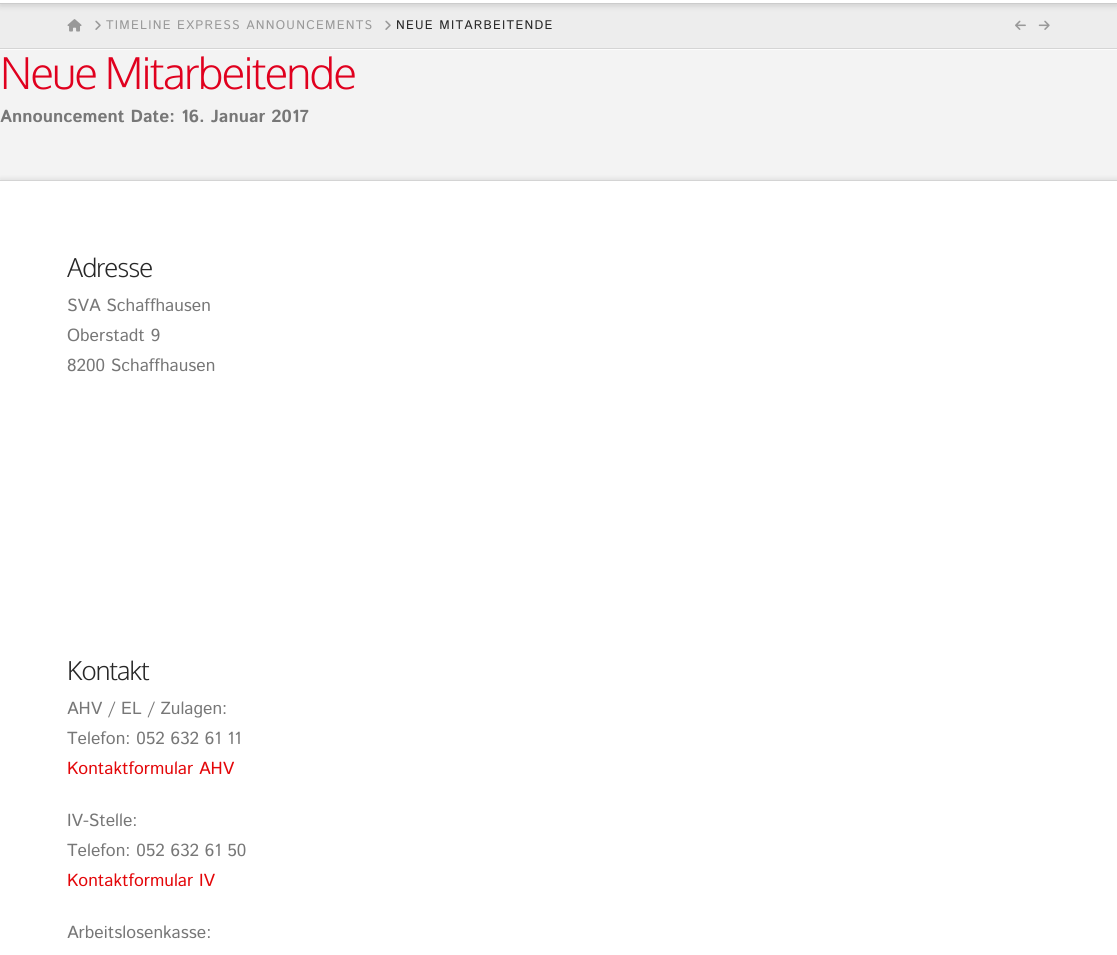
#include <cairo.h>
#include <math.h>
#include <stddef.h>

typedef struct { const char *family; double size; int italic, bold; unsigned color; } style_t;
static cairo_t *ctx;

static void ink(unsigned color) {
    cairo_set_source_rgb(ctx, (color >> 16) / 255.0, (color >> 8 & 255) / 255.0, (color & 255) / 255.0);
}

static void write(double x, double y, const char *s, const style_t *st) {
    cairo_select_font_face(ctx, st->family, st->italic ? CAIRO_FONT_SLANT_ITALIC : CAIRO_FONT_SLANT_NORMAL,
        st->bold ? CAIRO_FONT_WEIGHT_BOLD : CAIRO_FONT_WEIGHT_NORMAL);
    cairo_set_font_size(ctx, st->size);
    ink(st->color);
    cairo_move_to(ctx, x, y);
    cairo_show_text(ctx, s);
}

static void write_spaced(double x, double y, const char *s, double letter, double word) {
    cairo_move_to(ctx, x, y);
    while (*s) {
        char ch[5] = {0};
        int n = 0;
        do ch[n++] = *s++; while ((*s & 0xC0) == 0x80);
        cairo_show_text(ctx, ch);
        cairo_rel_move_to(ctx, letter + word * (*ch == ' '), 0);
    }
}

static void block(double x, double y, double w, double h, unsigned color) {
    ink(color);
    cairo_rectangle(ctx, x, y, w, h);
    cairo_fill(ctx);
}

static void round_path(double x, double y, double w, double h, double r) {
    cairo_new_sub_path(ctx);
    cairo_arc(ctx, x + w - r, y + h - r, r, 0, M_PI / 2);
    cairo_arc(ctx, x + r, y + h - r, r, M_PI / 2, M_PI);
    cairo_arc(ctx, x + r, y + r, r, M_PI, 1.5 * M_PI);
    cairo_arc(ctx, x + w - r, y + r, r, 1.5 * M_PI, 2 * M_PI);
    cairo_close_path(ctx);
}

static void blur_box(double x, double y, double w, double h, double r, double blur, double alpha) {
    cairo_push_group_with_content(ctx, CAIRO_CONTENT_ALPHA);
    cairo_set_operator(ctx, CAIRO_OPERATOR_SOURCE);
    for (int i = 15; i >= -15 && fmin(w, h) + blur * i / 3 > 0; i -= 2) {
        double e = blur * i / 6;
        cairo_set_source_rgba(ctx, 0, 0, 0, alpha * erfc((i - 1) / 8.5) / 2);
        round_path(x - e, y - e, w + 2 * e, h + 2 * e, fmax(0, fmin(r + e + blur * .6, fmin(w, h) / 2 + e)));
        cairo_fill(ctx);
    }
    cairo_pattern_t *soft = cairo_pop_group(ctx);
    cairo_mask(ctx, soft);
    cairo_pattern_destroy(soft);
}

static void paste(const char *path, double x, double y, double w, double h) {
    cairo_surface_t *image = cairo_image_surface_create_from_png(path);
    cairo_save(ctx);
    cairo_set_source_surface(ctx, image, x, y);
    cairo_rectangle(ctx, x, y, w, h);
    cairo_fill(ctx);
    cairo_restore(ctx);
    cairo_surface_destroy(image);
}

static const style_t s1 = {"Istok Web", 17.5, 0, 1, 0x777777};
static const style_t s2 = {"Istok Web", 17.5, 0, 0, 0x777777};
static const style_t s3 = {"Istok Web", 17.5, 0, 0, 0xe30609};

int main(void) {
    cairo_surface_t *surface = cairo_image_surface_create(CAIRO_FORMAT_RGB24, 1117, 955);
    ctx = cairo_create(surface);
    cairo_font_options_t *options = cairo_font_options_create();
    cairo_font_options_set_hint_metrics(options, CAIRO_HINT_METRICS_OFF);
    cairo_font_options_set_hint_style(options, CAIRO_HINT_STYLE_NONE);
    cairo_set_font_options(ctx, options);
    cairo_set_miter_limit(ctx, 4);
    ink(0xf3f3f3);
    cairo_paint(ctx);
    block(0, 4, 1117, 44, 0xededed);
    ink(0x000000);
    blur_box(0, -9, 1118, 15, 0, 3, 0.13);
    block(0, 0, 1117, 3, 0xffffff);
    block(0, 3, 1117, 1, 0xcccccc);
    ink(0xfcfcfc);
    cairo_new_path(ctx);
    cairo_move_to(ctx, 0, 49);
    cairo_line_to(ctx, 0, 50);
    cairo_line_to(ctx, 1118, 50);
    cairo_line_to(ctx, 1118, 5);
    cairo_line_to(ctx, 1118, 49);
    cairo_close_path(ctx);
    cairo_fill(ctx);
    block(0, 48, 1117, 1, 0xd5d5d5);
    paste("pic1.png", 67, 19, 15, 13);
    paste("pic2.png", 95, 20, 6, 10);
    cairo_select_font_face(ctx, "Istok Web", CAIRO_FONT_SLANT_NORMAL, CAIRO_FONT_WEIGHT_NORMAL);
    cairo_set_font_size(ctx, 12.5);
    ink(0x999999);
    write_spaced(106, 29, "TIMELINE EXPRESS ANNOUNCEMENTS", 1.25, 0);
    paste("pic2.png", 385, 20, 6, 10);
    ink(0x272727);
    write_spaced(396, 29, "NEUE MITARBEITENDE", 1.25, 0);
    paste("pic3.png", 1015, 20, 11, 10);
    paste("pic4.png", 1038, 20, 12, 10);
    cairo_select_font_face(ctx, "Oxygen Light", CAIRO_FONT_SLANT_NORMAL, CAIRO_FONT_WEIGHT_NORMAL);
    cairo_set_font_size(ctx, 43.75);
    ink(0xe0001e);
    write_spaced(0, 89, "Neue Mitarbeitende", -1.5, 0);
    write(0, 122, "Announcement Date: 16. Januar 2017", &s1);
    ink(0x000000);
    blur_box(0, 178, 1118, 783, 0, 2, 0.07);
    block(0, 181, 1117, 774, 0xffffff);
    block(0, 180, 1117, 1, 0xd4d4d4);
    cairo_select_font_face(ctx, "Oxygen Light", CAIRO_FONT_SLANT_NORMAL, CAIRO_FONT_WEIGHT_NORMAL);
    cairo_set_font_size(ctx, 26);
    ink(0x272727);
    write_spaced(67, 277, "Adresse", -1, 0);
    write(67, 311, "SVA Schaffhausen", &s2);
    write(67, 341, "Oberstadt 9", &s2);
    write(67, 371, "8200 Schaffhausen", &s2);
    cairo_select_font_face(ctx, "Oxygen Light", CAIRO_FONT_SLANT_NORMAL, CAIRO_FONT_WEIGHT_NORMAL);
    cairo_set_font_size(ctx, 26);
    ink(0x272727);
    write_spaced(67, 680, "Kontakt", -1, 0);
    write(67, 714, "AHV / EL / Zulagen:", &s2);
    write(67, 744, "Telefon: 052 632 61 11", &s2);
    write(67, 774, "Kontaktformular AHV", &s3);
    write(67, 826, "IV-Stelle:", &s2);
    write(67, 856, "Telefon: 052 632 61 50", &s2);
    write(67, 886, "Kontaktformular IV", &s3);
    write(67, 938, "Arbeitslosenkasse:", &s2);
    cairo_surface_write_to_png(surface, "screenshot.png");
    cairo_font_options_destroy(options);
    cairo_destroy(ctx);
    cairo_surface_destroy(surface);
    return 0;
}
